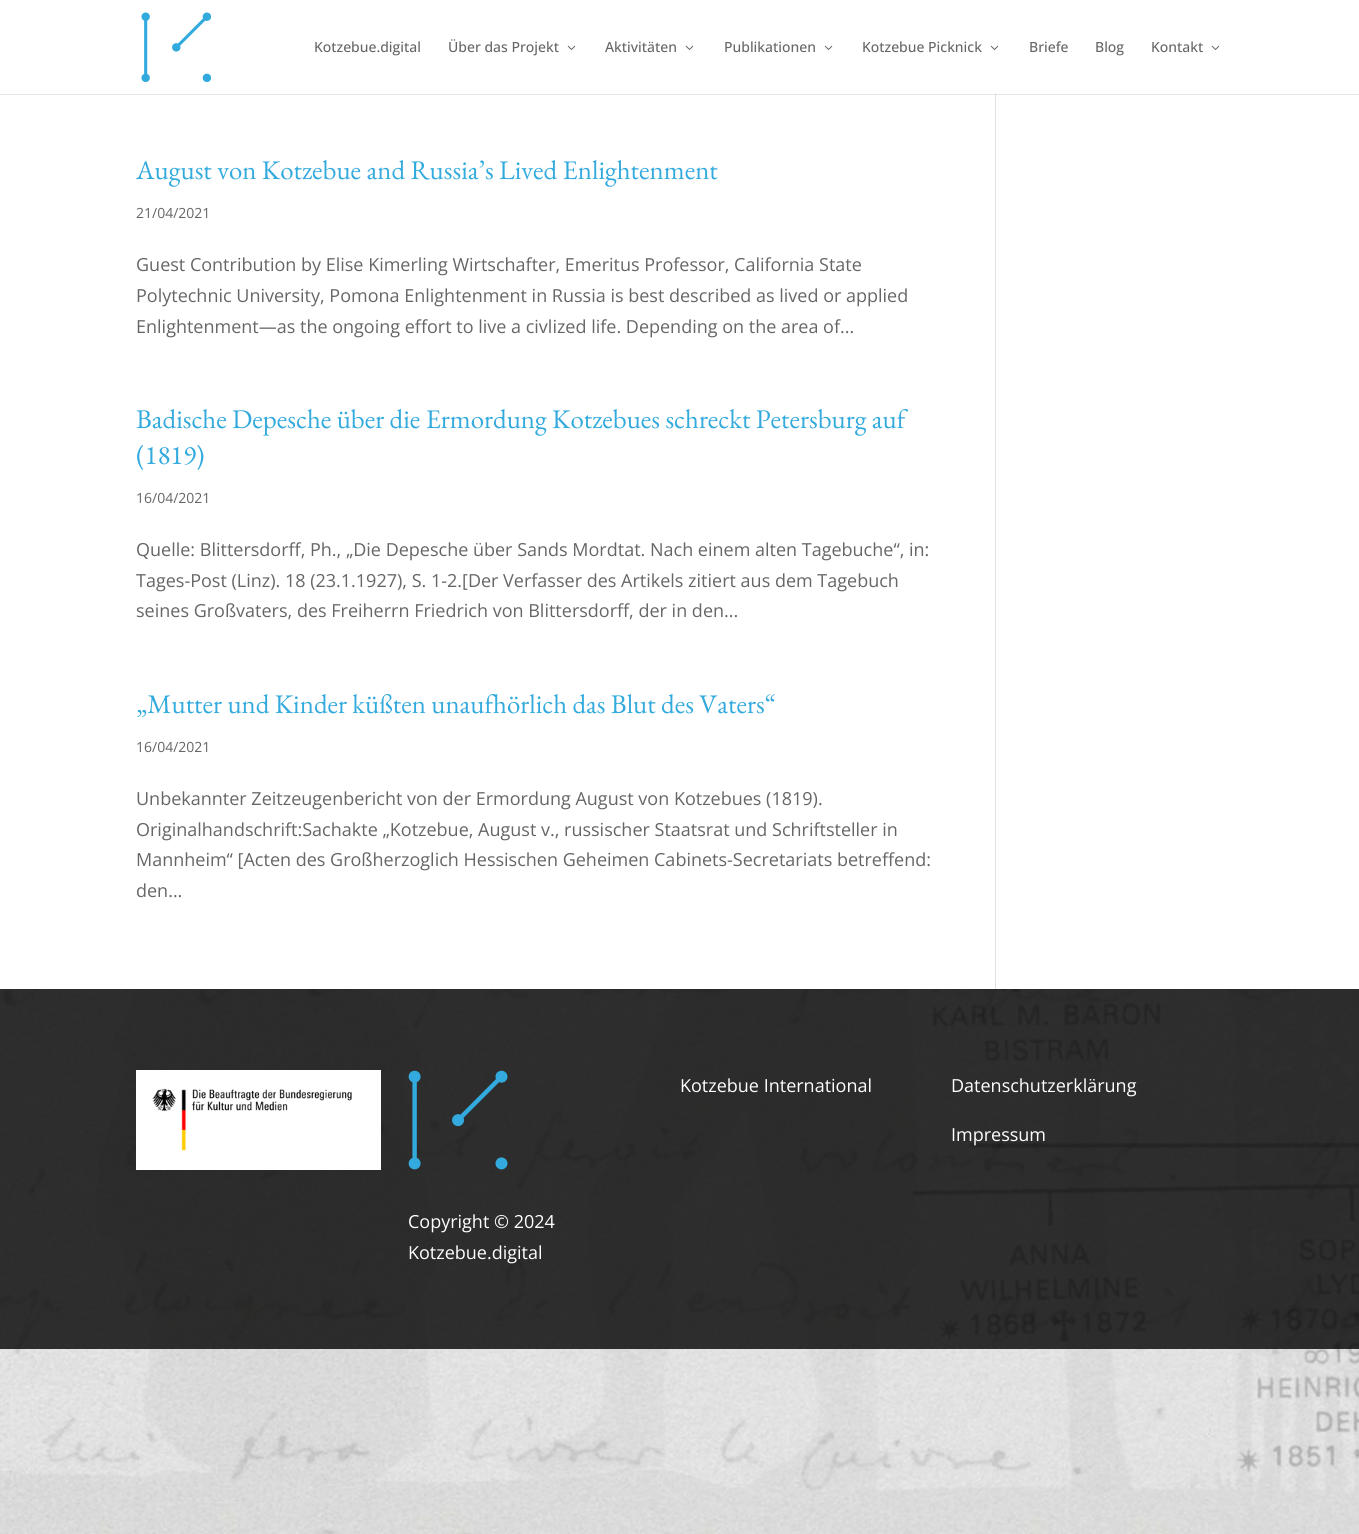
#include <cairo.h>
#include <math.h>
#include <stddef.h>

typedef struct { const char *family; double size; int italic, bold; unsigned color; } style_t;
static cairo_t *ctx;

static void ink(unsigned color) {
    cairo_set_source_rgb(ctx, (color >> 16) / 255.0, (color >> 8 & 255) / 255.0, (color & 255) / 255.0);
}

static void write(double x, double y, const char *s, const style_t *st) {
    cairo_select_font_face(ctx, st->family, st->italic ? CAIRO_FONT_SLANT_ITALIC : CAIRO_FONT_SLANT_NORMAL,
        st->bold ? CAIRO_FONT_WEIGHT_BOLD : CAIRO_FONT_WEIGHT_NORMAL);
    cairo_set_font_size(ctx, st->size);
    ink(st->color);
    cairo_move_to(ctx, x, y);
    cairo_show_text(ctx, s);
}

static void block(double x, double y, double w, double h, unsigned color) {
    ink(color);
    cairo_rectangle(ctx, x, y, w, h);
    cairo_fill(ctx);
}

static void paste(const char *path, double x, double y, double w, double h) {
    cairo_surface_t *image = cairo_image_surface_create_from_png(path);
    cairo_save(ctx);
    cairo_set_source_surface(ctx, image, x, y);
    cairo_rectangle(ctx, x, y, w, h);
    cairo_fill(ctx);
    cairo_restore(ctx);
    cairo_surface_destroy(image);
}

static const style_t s1 = {"Open Sans Medium", 14, 0, 0, 0x666666};
static const style_t s2 = {"EB Garamond", 26.9, 0, 0, 0x33aadd};
static const style_t s3 = {"Open Sans", 14, 0, 0, 0x666666};
static const style_t s4 = {"Open Sans", 18, 0, 0, 0x666666};
static const style_t s5 = {"Open Sans", 18, 0, 0, 0xffffff};

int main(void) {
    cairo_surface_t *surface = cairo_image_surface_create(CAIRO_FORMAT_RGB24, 1359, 1534);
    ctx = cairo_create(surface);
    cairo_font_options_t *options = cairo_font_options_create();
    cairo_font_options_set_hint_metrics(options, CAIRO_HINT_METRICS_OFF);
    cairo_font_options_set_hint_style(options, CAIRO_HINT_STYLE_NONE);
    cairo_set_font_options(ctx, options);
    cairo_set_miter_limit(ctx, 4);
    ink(0xffffff);
    cairo_paint(ctx);
    paste("pic1.png", 0, 989, 1359, 545);
    block(995, 94, 1, 895, 0xe2e2e2);
    cairo_set_source_rgba(ctx, 0, 0, 0, 0.1);
    cairo_rectangle(ctx, 0, 94, 1359, 1);
    cairo_fill(ctx);
    paste("pic2.png", 141, 12, 70, 70);
    write(314, 52, "Kotzebue.digital", &s1);
    write(448, 52, "Über das Projekt", &s1);
    paste("pic3.png", 567, 45, 9, 5);
    write(605, 52, "Aktivitäten", &s1);
    paste("pic3.png", 685, 45, 9, 5);
    write(724, 52, "Publikationen", &s1);
    paste("pic3.png", 824, 45, 9, 5);
    write(862, 52, "Kotzebue Picknick", &s1);
    paste("pic3.png", 990, 45, 9, 5);
    write(1029, 52, "Briefe", &s1);
    write(1095, 52, "Blog", &s1);
    write(1151, 52, "Kontakt", &s1);
    paste("pic3.png", 1211, 45, 9, 5);
    write(136, 179, "August von Kotzebue and Russia’s Lived Enlightenment", &s2);
    write(136, 218, "21/04/2021", &s3);
    write(136, 271, "Guest Contribution by Elise Kimerling Wirtschafter, Emeritus Professor, California State", &s4);
    write(136, 302, "Polytechnic University, Pomona Enlightenment in Russia is best described as lived or applied", &s4);
    write(136, 333, "Enlightenment—as the ongoing effort to live a civlized life. Depending on the area of...", &s4);
    write(136, 428, "Badische Depesche über die Ermordung Kotzebues schreckt Petersburg auf", &s2);
    write(136, 464, "(1819)", &s2);
    write(136, 503, "16/04/2021", &s3);
    write(136, 556, "Quelle: Blittersdorff, Ph., „Die Depesche über Sands Mordtat. Nach einem alten Tagebuche“, in:", &s4);
    write(136, 587, "Tages-Post (Linz). 18 (23.1.1927), S. 1-2.[Der Verfasser des Artikels zitiert aus dem Tagebuch", &s4);
    write(136, 617, "seines Großvaters, des Freiherrn Friedrich von Blittersdorff, der in den...", &s4);
    write(136, 713, "„Mutter und Kinder küßten unaufhörlich das Blut des Vaters“", &s2);
    write(136, 752, "16/04/2021", &s3);
    write(136, 805, "Unbekannter Zeitzeugenbericht von der Ermordung August von Kotzebues (1819).", &s4);
    write(136, 836, "Originalhandschrift:Sachakte „Kotzebue, August v., russischer Staatsrat und Schriftsteller in", &s4);
    write(136, 866, "Mannheim“ [Acten des Großherzoglich Hessischen Geheimen Cabinets-Secretariats betreffend:", &s4);
    write(136, 897, "den...", &s4);
    cairo_set_source_rgba(ctx, 0, 0, 0, 0.8);
    cairo_rectangle(ctx, 0, 989, 1359, 360);
    cairo_fill(ctx);
    paste("pic4.png", 136, 1070, 245, 100);
    write(680, 1092, "Kotzebue International", &s5);
    write(951, 1092, "Datenschutzerklärung", &s5);
    write(951, 1141, "Impressum", &s5);
    paste("pic5.png", 408, 1070, 100, 100);
    write(408, 1228, "Copyright © 2024", &s5);
    write(408, 1259, "Kotzebue.digital", &s5);
    cairo_surface_write_to_png(surface, "screenshot.png");
    cairo_font_options_destroy(options);
    cairo_destroy(ctx);
    cairo_surface_destroy(surface);
    return 0;
}
